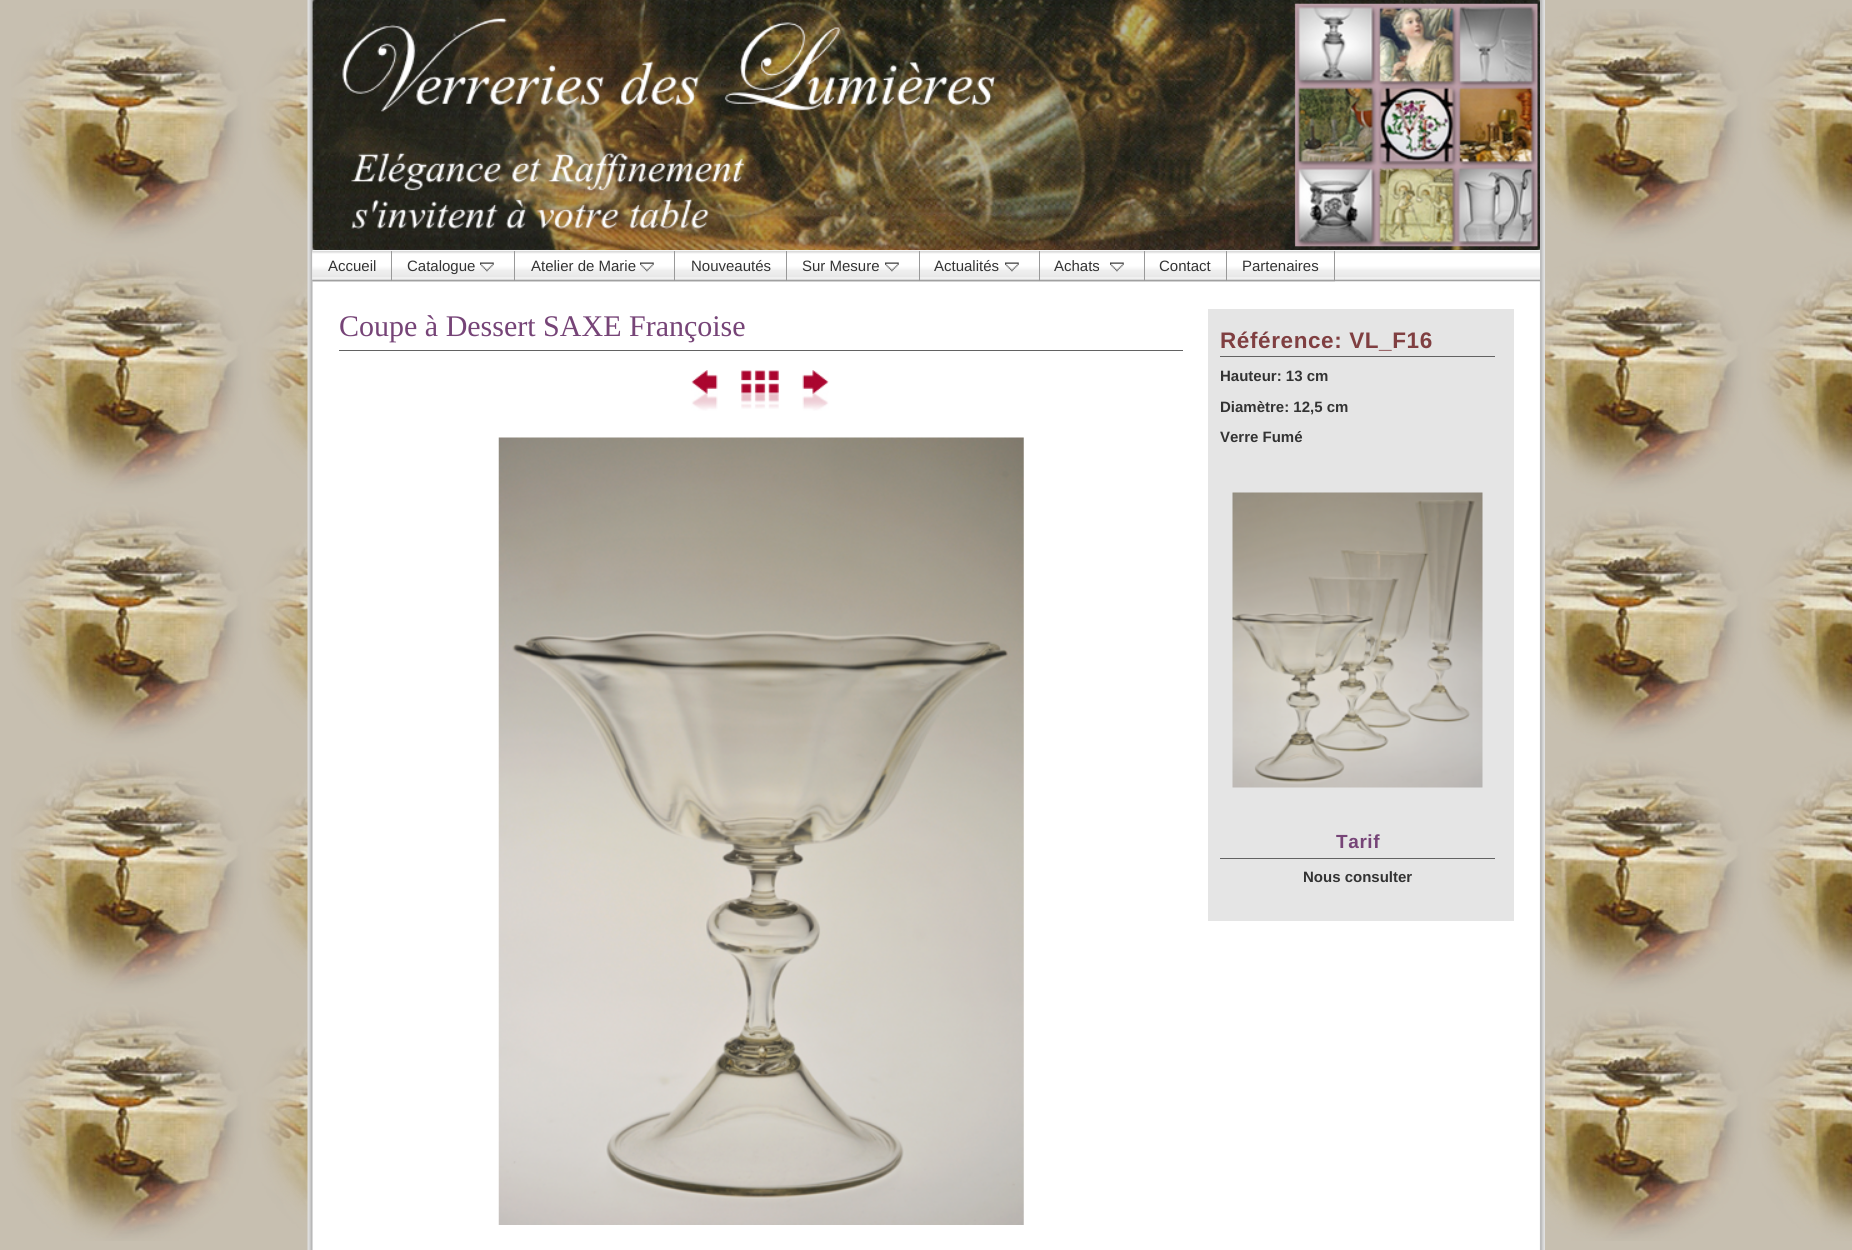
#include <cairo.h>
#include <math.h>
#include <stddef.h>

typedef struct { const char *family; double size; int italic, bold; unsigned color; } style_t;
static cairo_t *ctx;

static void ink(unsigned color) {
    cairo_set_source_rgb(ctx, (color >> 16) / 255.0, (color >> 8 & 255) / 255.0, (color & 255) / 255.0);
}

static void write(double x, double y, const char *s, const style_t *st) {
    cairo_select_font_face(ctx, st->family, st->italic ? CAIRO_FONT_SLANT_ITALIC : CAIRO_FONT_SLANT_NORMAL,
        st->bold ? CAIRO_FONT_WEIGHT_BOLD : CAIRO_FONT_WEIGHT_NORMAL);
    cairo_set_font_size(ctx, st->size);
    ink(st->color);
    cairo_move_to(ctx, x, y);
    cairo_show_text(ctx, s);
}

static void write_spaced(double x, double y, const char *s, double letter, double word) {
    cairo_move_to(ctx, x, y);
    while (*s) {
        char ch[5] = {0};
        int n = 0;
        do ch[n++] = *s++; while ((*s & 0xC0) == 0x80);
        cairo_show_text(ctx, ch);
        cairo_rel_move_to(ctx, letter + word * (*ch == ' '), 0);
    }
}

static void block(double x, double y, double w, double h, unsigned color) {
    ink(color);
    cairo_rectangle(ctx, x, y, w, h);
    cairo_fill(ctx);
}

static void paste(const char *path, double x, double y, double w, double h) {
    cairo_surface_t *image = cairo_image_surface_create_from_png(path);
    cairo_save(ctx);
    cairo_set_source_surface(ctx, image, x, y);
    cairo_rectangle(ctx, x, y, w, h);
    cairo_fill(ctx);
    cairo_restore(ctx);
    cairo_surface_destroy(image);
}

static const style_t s1 = {"Liberation Sans", 15, 0, 0, 0x333333};
static const style_t s2 = {"Liberation Serif", 30, 0, 0, 0x764477};
static const style_t s3 = {"Liberation Sans", 15, 0, 1, 0x333333};

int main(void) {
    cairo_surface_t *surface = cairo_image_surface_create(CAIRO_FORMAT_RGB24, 1852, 1250);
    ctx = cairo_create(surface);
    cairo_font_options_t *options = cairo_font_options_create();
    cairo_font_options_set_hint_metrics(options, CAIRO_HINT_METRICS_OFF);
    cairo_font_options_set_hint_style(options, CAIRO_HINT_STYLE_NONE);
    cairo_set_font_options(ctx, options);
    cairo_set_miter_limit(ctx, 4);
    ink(0xc7bfb0);
    cairo_paint(ctx);
    paste("pic1.png", 11, 9, 1841, 1232);
    paste("pic2.png", 307, 0, 1238, 1250);
    paste("pic3.png", 312, 0, 1228, 250);
    paste("pic4.png", 312, 251, 1228, 31);
    block(313, 250, 1227, 1, 0xf6f7f8);
    paste("pic5.png", 312, 251, 81, 31);
    block(391, 251, 1, 30, 0x999999);
    write(328, 271, "Accueil", &s1);
    paste("pic6.png", 392, 251, 123, 31);
    block(514, 251, 1, 30, 0x999999);
    write(407, 271, "Catalogue", &s1);
    paste("pic7.png", 480, 262, 14, 10);
    paste("pic8.png", 515, 251, 160, 31);
    block(674, 251, 1, 30, 0x999999);
    write(531, 271, "Atelier de Marie", &s1);
    paste("pic9.png", 640, 262, 14, 10);
    paste("pic10.png", 675, 251, 113, 31);
    block(786, 251, 1, 30, 0x999999);
    write(691, 271, "Nouveautés", &s1);
    paste("pic11.png", 787, 251, 133, 31);
    block(919, 251, 1, 30, 0x999999);
    write(802, 271, "Sur Mesure", &s1);
    paste("pic9.png", 885, 262, 14, 10);
    paste("pic12.png", 920, 251, 120, 31);
    block(1039, 251, 1, 30, 0x999999);
    write(934, 271, "Actualités", &s1);
    paste("pic7.png", 1005, 262, 14, 10);
    paste("pic13.png", 1040, 251, 105, 31);
    block(1144, 251, 1, 30, 0x999999);
    write(1054, 271, "Achats", &s1);
    paste("pic7.png", 1110, 262, 14, 10);
    paste("pic14.png", 1145, 251, 83, 31);
    block(1226, 251, 1, 30, 0x999999);
    write(1159, 271, "Contact", &s1);
    paste("pic15.png", 1227, 251, 108, 31);
    block(1334, 251, 1, 30, 0x999999);
    write(1242, 271, "Partenaires", &s1);
    block(339, 350, 844, 1, 0x626262);
    write(339, 336, "Coupe à Dessert SAXE Françoise", &s2);
    paste("pic16.png", 691, 370, 27, 41);
    paste("pic17.png", 741, 370, 38, 39);
    paste("pic18.png", 802, 370, 27, 41);
    paste("pic19.png", 498, 437, 526, 788);
    block(1208, 309, 306, 612, 0xe5e5e5);
    block(1220, 356, 275, 1, 0x626262);
    cairo_select_font_face(ctx, "Liberation Sans", CAIRO_FONT_SLANT_NORMAL, CAIRO_FONT_WEIGHT_BOLD);
    cairo_set_font_size(ctx, 22.5);
    ink(0x803f41);
    write_spaced(1220, 348, "Référence: VL_F16", 0.6, 0);
    write(1220, 381, "Hauteur: 13 cm", &s3);
    write(1220, 412, "Diamètre: 12,5 cm", &s3);
    write(1220, 442, "Verre Fumé", &s3);
    paste("pic20.png", 1232, 492, 251, 296);
    block(1220, 858, 275, 1, 0x626262);
    cairo_set_font_size(ctx, 19);
    ink(0x764477);
    write_spaced(1336, 848, "Tarif", 0.6, 0);
    write(1303, 882, "Nous consulter", &s3);
    cairo_surface_write_to_png(surface, "screenshot.png");
    cairo_font_options_destroy(options);
    cairo_destroy(ctx);
    cairo_surface_destroy(surface);
    return 0;
}
